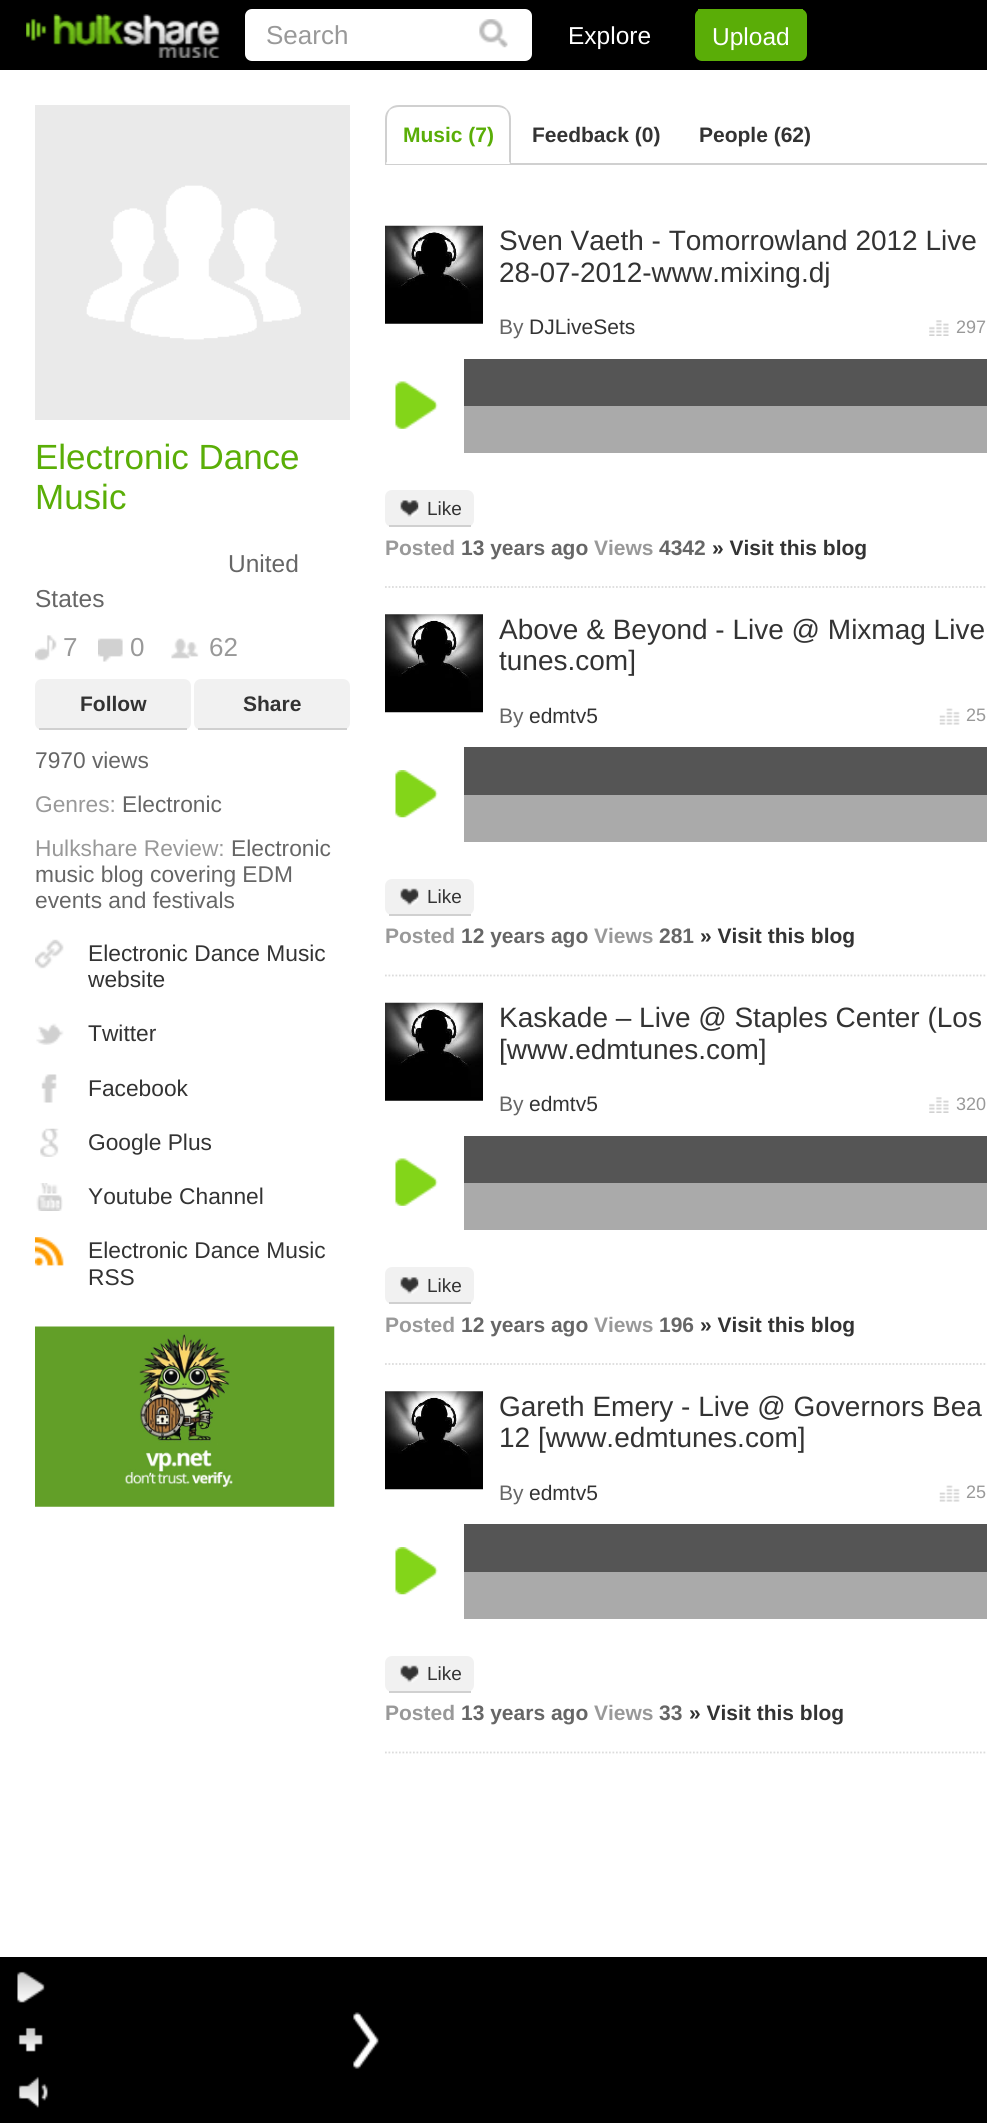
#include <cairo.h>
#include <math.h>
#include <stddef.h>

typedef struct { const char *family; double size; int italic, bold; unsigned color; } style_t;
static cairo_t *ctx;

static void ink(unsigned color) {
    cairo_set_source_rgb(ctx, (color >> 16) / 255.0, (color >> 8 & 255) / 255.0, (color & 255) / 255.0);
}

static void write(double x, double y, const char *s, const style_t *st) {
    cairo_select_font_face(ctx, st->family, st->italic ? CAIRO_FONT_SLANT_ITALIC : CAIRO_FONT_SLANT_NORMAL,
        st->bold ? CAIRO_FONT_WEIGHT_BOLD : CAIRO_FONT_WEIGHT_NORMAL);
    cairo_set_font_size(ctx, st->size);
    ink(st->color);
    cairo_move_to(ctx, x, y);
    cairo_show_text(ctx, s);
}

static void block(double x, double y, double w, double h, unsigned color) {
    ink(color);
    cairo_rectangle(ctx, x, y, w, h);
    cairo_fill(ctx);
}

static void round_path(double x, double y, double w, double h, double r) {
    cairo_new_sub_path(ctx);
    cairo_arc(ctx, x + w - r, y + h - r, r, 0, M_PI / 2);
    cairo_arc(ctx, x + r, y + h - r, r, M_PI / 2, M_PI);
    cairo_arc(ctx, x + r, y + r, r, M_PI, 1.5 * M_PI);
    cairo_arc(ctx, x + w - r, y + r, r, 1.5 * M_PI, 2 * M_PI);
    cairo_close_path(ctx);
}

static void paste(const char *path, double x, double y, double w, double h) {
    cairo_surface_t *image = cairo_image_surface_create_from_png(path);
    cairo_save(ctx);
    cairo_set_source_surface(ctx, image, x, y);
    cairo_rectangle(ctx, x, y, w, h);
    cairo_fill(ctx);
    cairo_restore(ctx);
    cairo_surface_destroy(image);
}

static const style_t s1 = {"Liberation Sans", 26, 0, 0, 0x999999};
static const style_t s2 = {"Liberation Sans", 24.5, 0, 0, 0xffffff};
static const style_t s3 = {"Liberation Sans", 35, 0, 0, 0x5aae07};
static const style_t s4 = {"Liberation Sans", 24.5, 0, 0, 0x666666};
static const style_t s5 = {"Liberation Sans", 21, 0, 1, 0x333333};
static const style_t s6 = {"Liberation Sans", 22.75, 0, 0, 0x666666};
static const style_t s7 = {"Liberation Sans", 22.75, 0, 0, 0x999999};
static const style_t s8 = {"Liberation Sans", 22.75, 0, 0, 0x333333};
static const style_t s9 = {"Liberation Sans", 21, 0, 1, 0x5aae07};
static const style_t s10 = {"Liberation Sans", 28, 0, 0, 0x333333};
static const style_t s11 = {"Liberation Sans", 21, 0, 0, 0x666666};
static const style_t s12 = {"Liberation Sans", 21, 0, 0, 0x333333};
static const style_t s13 = {"Liberation Sans", 18, 0, 0, 0x999999};
static const style_t s14 = {"Liberation Sans", 19, 0, 0, 0x333333};
static const style_t s15 = {"Liberation Sans", 21, 0, 1, 0x999999};
static const style_t s16 = {"Liberation Sans", 21, 0, 1, 0x666666};

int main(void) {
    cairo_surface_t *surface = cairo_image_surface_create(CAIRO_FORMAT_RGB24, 987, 2123);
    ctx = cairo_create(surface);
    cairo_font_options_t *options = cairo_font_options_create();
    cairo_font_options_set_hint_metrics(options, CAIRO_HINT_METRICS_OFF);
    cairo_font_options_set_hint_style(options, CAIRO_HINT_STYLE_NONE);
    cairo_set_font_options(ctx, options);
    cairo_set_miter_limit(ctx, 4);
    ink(0xffffff);
    cairo_paint(ctx);
    block(0, 0, 987, 70, 0x000000);
    paste("pic1.png", 26, 14, 194, 44);
    ink(0xffffff);
    round_path(247, 11, 283, 48, 5);
    cairo_fill_preserve(ctx);
    cairo_set_line_width(ctx, 4);
    cairo_stroke(ctx);
    write(266, 44, "Search", &s1);
    paste("pic2.png", 479, 19, 29, 29);
    write(568, 44, "Explore", &s2);
    ink(0x5aad07);
    round_path(695, 9, 112, 52, 7);
    cairo_fill(ctx);
    block(698, 9, 105, 2, 0x5aad07);
    write(712, 45, "Upload", &s2);
    paste("pic3.png", 35, 105, 315, 315);
    write(35, 469, "Electronic Dance", &s3);
    write(35, 509, "Music", &s3);
    write(228, 572, "United", &s4);
    write(35, 607, "States", &s4);
    paste("pic4.png", 35, 635, 22, 26);
    write(63, 656, "7", &s1);
    paste("pic5.png", 98, 638, 25, 24);
    write(130, 656, "0", &s1);
    paste("pic6.png", 171, 638, 28, 21);
    write(209, 656, "62", &s1);
    ink(0xf1f1f1);
    round_path(35, 679, 156, 51, 7);
    cairo_fill(ctx);
    block(39, 728, 148, 2, 0xd0d0d0);
    write(80, 711, "Follow", &s5);
    ink(0xf1f1f1);
    round_path(194, 679, 156, 51, 7);
    cairo_fill(ctx);
    block(198, 728, 149, 2, 0xd0d0d0);
    write(243, 711, "Share", &s5);
    write(35, 768, "7970 views", &s6);
    write(35, 812, "Genres:", &s7);
    write(122, 812, "Electronic", &s6);
    write(35, 856, "Hulkshare Review:", &s7);
    write(231, 856, "Electronic", &s6);
    write(35, 882, "music blog covering EDM", &s6);
    write(35, 908, "events and festivals", &s6);
    paste("pic7.png", 35, 939, 29, 30);
    write(88, 961, "Electronic Dance Music", &s8);
    write(88, 987, "website", &s8);
    paste("pic8.png", 36, 1023, 28, 22);
    write(88, 1041, "Twitter", &s8);
    paste("pic9.png", 41, 1074, 16, 29);
    write(88, 1096, "Facebook", &s8);
    paste("pic10.png", 40, 1128, 19, 29);
    write(88, 1150, "Google Plus", &s8);
    paste("pic11.png", 36, 1183, 27, 28);
    write(88, 1204, "Youtube Channel", &s8);
    paste("pic12.png", 35, 1237, 29, 29);
    write(88, 1258, "Electronic Dance Music", &s8);
    write(88, 1285, "RSS", &s8);
    paste("pic13.png", 35, 1326, 300, 181);
    block(385, 163, 602, 2, 0xd0d0d0);
    cairo_new_path(ctx);
    cairo_move_to(ctx, 399, 105);
    cairo_curve_to(ctx, 395, 105, 392, 106, 389, 109);
    cairo_line_to(ctx, 390, 110);
    cairo_curve_to(ctx, 392, 108, 396, 107, 399, 107);
    cairo_line_to(ctx, 497, 107);
    cairo_curve_to(ctx, 500, 107, 504, 108, 506, 110);
    cairo_line_to(ctx, 507, 109);
    cairo_curve_to(ctx, 504, 106, 501, 105, 497, 105);
    cairo_close_path(ctx);
    cairo_fill(ctx);
    cairo_new_path(ctx);
    cairo_move_to(ctx, 511, 164);
    cairo_line_to(ctx, 511, 119);
    cairo_curve_to(ctx, 511, 115, 510, 112, 507, 109);
    cairo_line_to(ctx, 506, 110);
    cairo_curve_to(ctx, 508, 112, 509, 116, 509, 119);
    cairo_line_to(ctx, 509, 162);
    cairo_close_path(ctx);
    cairo_fill(ctx);
    ink(0xffffff);
    cairo_new_path(ctx);
    cairo_move_to(ctx, 510, 164);
    cairo_line_to(ctx, 386, 164);
    cairo_line_to(ctx, 387, 162);
    cairo_line_to(ctx, 387, 163);
    cairo_line_to(ctx, 509, 163);
    cairo_line_to(ctx, 509, 162);
    cairo_close_path(ctx);
    cairo_fill(ctx);
    ink(0xd0d0d0);
    cairo_new_path(ctx);
    cairo_move_to(ctx, 385, 119);
    cairo_line_to(ctx, 385, 164);
    cairo_line_to(ctx, 387, 162);
    cairo_line_to(ctx, 387, 119);
    cairo_curve_to(ctx, 387, 116, 388, 112, 390, 110);
    cairo_line_to(ctx, 389, 109);
    cairo_curve_to(ctx, 386, 112, 385, 115, 385, 119);
    cairo_close_path(ctx);
    cairo_fill(ctx);
    write(403, 142, "Music (7)", &s9);
    write(532, 142, "Feedback (0)", &s5);
    write(699, 142, "People (62)", &s5);
    cairo_new_path(ctx);
    cairo_move_to(ctx, 385, 587);
    cairo_line_to(ctx, 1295, 587);
    ink(0xdcdcdc);
    cairo_set_line_width(ctx, 1.8);
    cairo_set_dash(ctx, (double[]){1.75, 1.75}, 2, 0);
    cairo_stroke(ctx);
    paste("pic14.png", 385, 225, 98, 99);
    write(499, 250, "Sven Vaeth - Tomorrowland 2012 Live", &s10);
    write(499, 282, "28-07-2012-www.mixing.dj", &s10);
    write(499, 334, "By", &s11);
    write(529, 334, "DJLiveSets", &s12);
    paste("pic15.png", 929, 320, 20, 16);
    write(956, 333, "297", &s13);
    paste("pic16.png", 395, 381, 43, 48);
    block(464, 359, 523, 47, 0x555555);
    block(464, 406, 523, 47, 0xaaaaaa);
    ink(0xf1f1f1);
    round_path(385, 490, 89, 37, 7);
    cairo_fill(ctx);
    block(389, 525, 82, 2, 0xd0d0d0);
    paste("pic17.png", 400, 500, 19, 17);
    write(427, 515, "Like", &s14);
    write(385, 555, "Posted", &s15);
    write(461, 555, "13 years ago", &s16);
    write(594, 555, "Views", &s15);
    write(659, 555, "4342", &s16);
    write(712, 555, "» Visit this blog", &s5);
    cairo_new_path(ctx);
    cairo_move_to(ctx, 385, 975.5);
    cairo_line_to(ctx, 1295, 975.5);
    ink(0xdcdcdc);
    cairo_stroke(ctx);
    paste("pic18.png", 385, 614, 98, 99);
    write(499, 639, "Above & Beyond - Live @ Mixmag Live", &s10);
    write(499, 670, "tunes.com]", &s10);
    write(499, 723, "By", &s11);
    write(529, 723, "edmtv5", &s12);
    paste("pic19.png", 939, 708, 21, 17);
    write(966, 721, "25", &s13);
    paste("pic20.png", 395, 770, 43, 48);
    block(464, 747, 523, 48, 0x555555);
    block(464, 795, 523, 47, 0xaaaaaa);
    ink(0xf1f1f1);
    round_path(385, 879, 89, 36, 7);
    cairo_fill(ctx);
    block(389, 914, 82, 2, 0xd0d0d0);
    paste("pic21.png", 400, 888, 19, 18);
    write(427, 903, "Like", &s14);
    write(385, 943, "Posted", &s15);
    write(461, 943, "12 years ago", &s16);
    write(594, 943, "Views", &s15);
    write(659, 943, "281", &s16);
    write(700, 943, "» Visit this blog", &s5);
    cairo_new_path(ctx);
    cairo_move_to(ctx, 385, 1364);
    cairo_line_to(ctx, 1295, 1364);
    ink(0xdcdcdc);
    cairo_stroke(ctx);
    paste("pic14.png", 385, 1002, 98, 99);
    write(499, 1027, "Kaskade – Live @ Staples Center (Los", &s10);
    write(499, 1059, "[www.edmtunes.com]", &s10);
    write(499, 1111, "By", &s11);
    write(529, 1111, "edmtv5", &s12);
    paste("pic15.png", 929, 1097, 20, 16);
    write(956, 1110, "320", &s13);
    paste("pic16.png", 395, 1158, 43, 48);
    block(464, 1136, 523, 47, 0x555555);
    block(464, 1183, 523, 47, 0xaaaaaa);
    ink(0xf1f1f1);
    round_path(385, 1267, 89, 37, 7);
    cairo_fill(ctx);
    block(389, 1302, 82, 2, 0xd0d0d0);
    paste("pic17.png", 400, 1277, 19, 17);
    write(427, 1292, "Like", &s14);
    write(385, 1332, "Posted", &s15);
    write(461, 1332, "12 years ago", &s16);
    write(594, 1332, "Views", &s15);
    write(659, 1332, "196", &s16);
    write(700, 1332, "» Visit this blog", &s5);
    cairo_new_path(ctx);
    cairo_move_to(ctx, 385, 1752.5);
    cairo_line_to(ctx, 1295, 1752.5);
    ink(0xdcdcdc);
    cairo_stroke(ctx);
    paste("pic22.png", 385, 1391, 98, 99);
    write(499, 1416, "Gareth Emery - Live @ Governors Bea", &s10);
    write(499, 1447, "12 [www.edmtunes.com]", &s10);
    write(499, 1500, "By", &s11);
    write(529, 1500, "edmtv5", &s12);
    paste("pic19.png", 939, 1485, 21, 17);
    write(966, 1498, "25", &s13);
    paste("pic20.png", 395, 1547, 43, 48);
    block(464, 1524, 523, 48, 0x555555);
    block(464, 1572, 523, 47, 0xaaaaaa);
    ink(0xf1f1f1);
    round_path(385, 1656, 89, 36, 7);
    cairo_fill(ctx);
    block(389, 1691, 82, 2, 0xd0d0d0);
    paste("pic21.png", 400, 1665, 19, 18);
    write(427, 1680, "Like", &s14);
    write(385, 1720, "Posted", &s15);
    write(461, 1720, "13 years ago", &s16);
    write(594, 1720, "Views", &s15);
    write(659, 1720, "33", &s16);
    write(689, 1720, "» Visit this blog", &s5);
    block(0, 1957, 987, 166, 0x000000);
    paste("pic23.png", 17, 1971, 28, 32);
    paste("pic24.png", 18, 2027, 25, 25);
    paste("pic25.png", 18, 2076, 30, 32);
    paste("pic26.png", 353, 2012, 26, 57);
    cairo_surface_write_to_png(surface, "screenshot.png");
    cairo_font_options_destroy(options);
    cairo_destroy(ctx);
    cairo_surface_destroy(surface);
    return 0;
}
